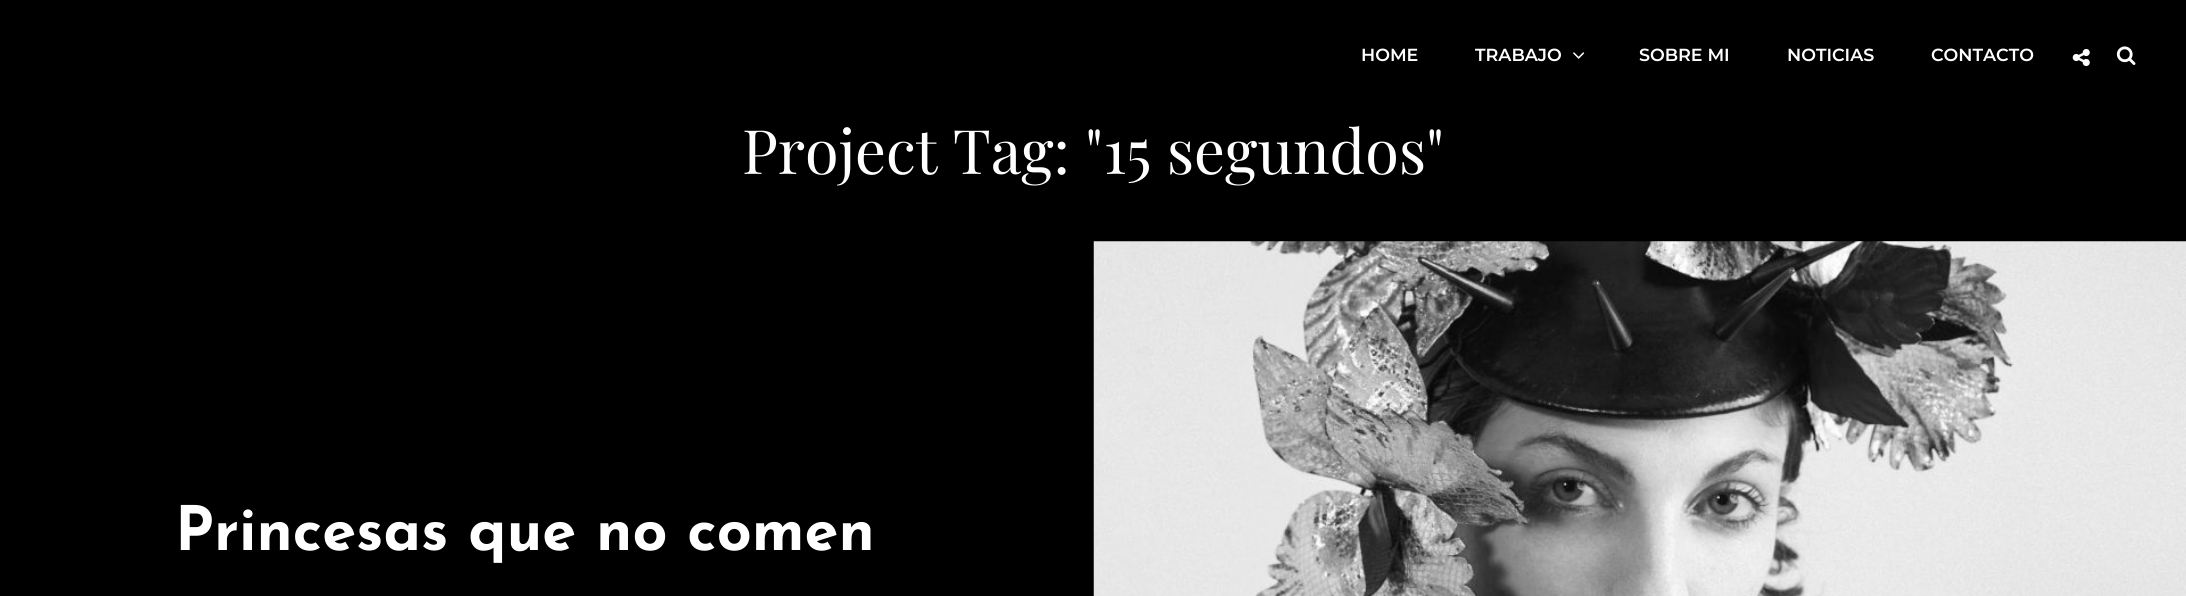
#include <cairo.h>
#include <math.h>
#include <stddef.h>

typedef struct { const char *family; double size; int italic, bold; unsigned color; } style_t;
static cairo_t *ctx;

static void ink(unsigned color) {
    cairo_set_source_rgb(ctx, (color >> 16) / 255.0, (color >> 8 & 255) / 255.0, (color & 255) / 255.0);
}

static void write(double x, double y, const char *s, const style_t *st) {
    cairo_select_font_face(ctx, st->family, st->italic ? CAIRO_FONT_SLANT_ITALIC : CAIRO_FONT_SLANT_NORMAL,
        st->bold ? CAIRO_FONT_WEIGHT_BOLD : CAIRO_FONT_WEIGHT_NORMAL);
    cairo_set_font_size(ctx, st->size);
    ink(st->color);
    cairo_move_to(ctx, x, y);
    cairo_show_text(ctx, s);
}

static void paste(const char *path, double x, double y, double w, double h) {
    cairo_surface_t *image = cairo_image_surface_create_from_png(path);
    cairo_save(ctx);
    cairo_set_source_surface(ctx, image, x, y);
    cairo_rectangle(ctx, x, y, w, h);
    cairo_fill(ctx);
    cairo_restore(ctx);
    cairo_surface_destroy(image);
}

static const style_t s1 = {"Montserrat SemiBold", 17.5, 0, 0, 0xffffff};
static const style_t s2 = {"Playfair Display", 61.25, 0, 0, 0xffffff};
static const style_t s3 = {"Josefin Sans", 61.25, 0, 1, 0xffffff};

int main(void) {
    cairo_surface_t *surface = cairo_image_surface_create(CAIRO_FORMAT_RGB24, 2186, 596);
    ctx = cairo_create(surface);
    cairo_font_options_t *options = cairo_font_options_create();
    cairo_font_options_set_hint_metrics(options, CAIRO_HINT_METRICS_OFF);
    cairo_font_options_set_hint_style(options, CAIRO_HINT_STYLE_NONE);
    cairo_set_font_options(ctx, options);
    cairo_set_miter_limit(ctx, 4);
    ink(0x000000);
    cairo_paint(ctx);
    write(1361, 61, "HOME", &s1);
    write(1475, 61, "TRABAJO", &s1);
    paste("pic1.png", 1573, 52, 12, 7);
    write(1639, 61, "SOBRE MI", &s1);
    write(1787, 61, "NOTICIAS", &s1);
    write(1931, 61, "CONTACTO", &s1);
    paste("pic2.png", 2072, 48, 18, 19);
    paste("pic3.png", 2116, 46, 20, 19);
    write(742, 174, "Project Tag: \"15 segundos\"", &s2);
    write(175, 550, "Princesas que no comen", &s3);
    paste("pic4.png", 1093, 241, 1093, 355);
    cairo_surface_write_to_png(surface, "screenshot.png");
    cairo_font_options_destroy(options);
    cairo_destroy(ctx);
    cairo_surface_destroy(surface);
    return 0;
}
